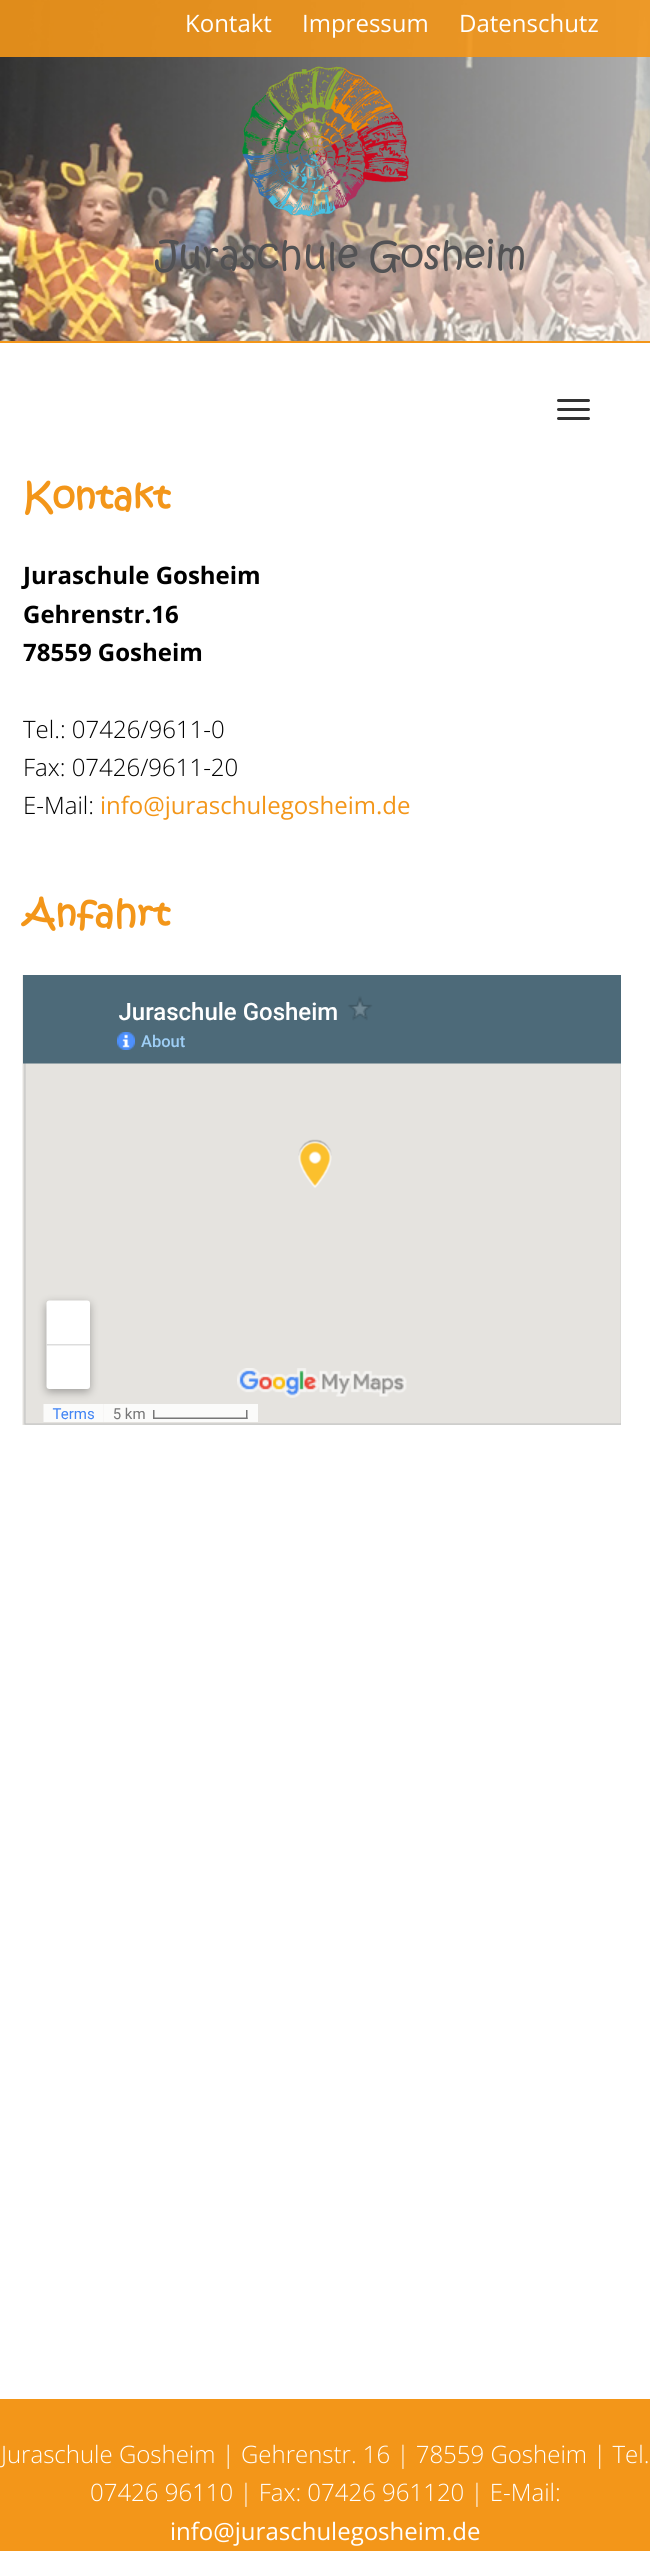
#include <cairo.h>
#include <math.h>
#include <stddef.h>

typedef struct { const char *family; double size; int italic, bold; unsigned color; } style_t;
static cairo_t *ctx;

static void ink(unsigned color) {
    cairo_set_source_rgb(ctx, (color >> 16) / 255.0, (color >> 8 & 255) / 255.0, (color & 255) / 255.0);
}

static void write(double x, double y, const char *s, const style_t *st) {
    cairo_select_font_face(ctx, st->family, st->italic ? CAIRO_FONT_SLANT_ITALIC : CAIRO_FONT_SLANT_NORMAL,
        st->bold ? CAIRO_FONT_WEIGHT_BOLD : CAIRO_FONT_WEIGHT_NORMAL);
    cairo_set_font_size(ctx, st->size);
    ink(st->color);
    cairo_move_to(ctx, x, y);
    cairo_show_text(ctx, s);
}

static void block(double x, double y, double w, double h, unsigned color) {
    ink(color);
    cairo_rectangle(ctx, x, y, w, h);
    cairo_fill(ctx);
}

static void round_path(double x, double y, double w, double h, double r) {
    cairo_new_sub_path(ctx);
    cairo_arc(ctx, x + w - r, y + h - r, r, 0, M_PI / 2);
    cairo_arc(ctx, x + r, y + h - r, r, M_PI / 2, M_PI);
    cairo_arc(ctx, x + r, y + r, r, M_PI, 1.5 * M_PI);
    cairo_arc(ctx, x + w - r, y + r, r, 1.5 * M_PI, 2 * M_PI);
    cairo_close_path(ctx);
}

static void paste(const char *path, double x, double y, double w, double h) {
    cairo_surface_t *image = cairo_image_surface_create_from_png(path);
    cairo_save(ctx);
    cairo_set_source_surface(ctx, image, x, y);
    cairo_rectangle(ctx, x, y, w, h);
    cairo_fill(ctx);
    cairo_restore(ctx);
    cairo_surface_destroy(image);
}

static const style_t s1 = {"Open Sans", 24, 0, 0, 0xffffff};
static const style_t s2 = {"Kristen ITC", 37.5, 0, 0, 0x525254};
static const style_t s3 = {"Kristen ITC", 36, 0, 1, 0xf39619};
static const style_t s4 = {"Open Sans", 24, 0, 1, 0x000000};
static const style_t s5 = {"Open Sans Light", 24, 0, 0, 0x000000};
static const style_t s6 = {"Open Sans", 24, 0, 0, 0xf39619};
static const style_t s7 = {"Open Sans Light", 24, 0, 0, 0xffffff};

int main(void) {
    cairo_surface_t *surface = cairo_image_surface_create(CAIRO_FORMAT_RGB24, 650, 2551);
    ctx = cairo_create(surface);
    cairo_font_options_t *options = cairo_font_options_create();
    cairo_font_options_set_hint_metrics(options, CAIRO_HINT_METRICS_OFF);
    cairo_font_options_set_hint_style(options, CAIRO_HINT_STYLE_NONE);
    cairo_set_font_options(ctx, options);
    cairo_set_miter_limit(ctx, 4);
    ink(0xffffff);
    cairo_paint(ctx);
    paste("pic1.png", 0, 0, 650, 341);
    block(0, 341, 650, 2, 0xf39619);
    cairo_set_source_rgba(ctx, 0.953, 0.588, 0.098, 0.9);
    cairo_rectangle(ctx, 0, 0, 650, 57);
    cairo_fill(ctx);
    write(185, 32, "Kontakt", &s1);
    write(302, 32, "Impressum", &s1);
    write(459, 32, "Datenschutz", &s1);
    paste("pic2.png", 242, 66, 167, 151);
    write(155, 269, "Juraschule Gosheim", &s2);
    ink(0x333333);
    round_path(557, 399, 33, 3, 1.5);
    cairo_fill(ctx);
    round_path(557, 408, 33, 3, 1.5);
    cairo_fill(ctx);
    round_path(557, 417, 33, 3, 1.5);
    cairo_fill(ctx);
    write(23, 510, "Kontakt", &s3);
    write(23, 584, "Juraschule Gosheim", &s4);
    write(23, 623, "Gehrenstr.16", &s4);
    write(23, 661, "78559 Gosheim", &s4);
    write(23, 738, "Tel.: 07426/9611-0", &s5);
    write(23, 776, "Fax: 07426/9611-20", &s5);
    write(23, 814, "E-Mail:", &s5);
    write(100, 814, "info@juraschulegosheim.de", &s6);
    write(23, 927, "Anfahrt", &s3);
    paste("pic3.png", 22, 975, 599, 450);
    block(0, 2399, 650, 152, 0xf39619);
    write(1, 2463, "Juraschule Gosheim | Gehrenstr. 16 | 78559 Gosheim | Tel.", &s7);
    write(90, 2501, "07426 96110 | Fax: 07426 961120 | E-Mail:", &s7);
    write(170, 2540, "info@juraschulegosheim.de", &s1);
    cairo_surface_write_to_png(surface, "screenshot.png");
    cairo_font_options_destroy(options);
    cairo_destroy(ctx);
    cairo_surface_destroy(surface);
    return 0;
}
